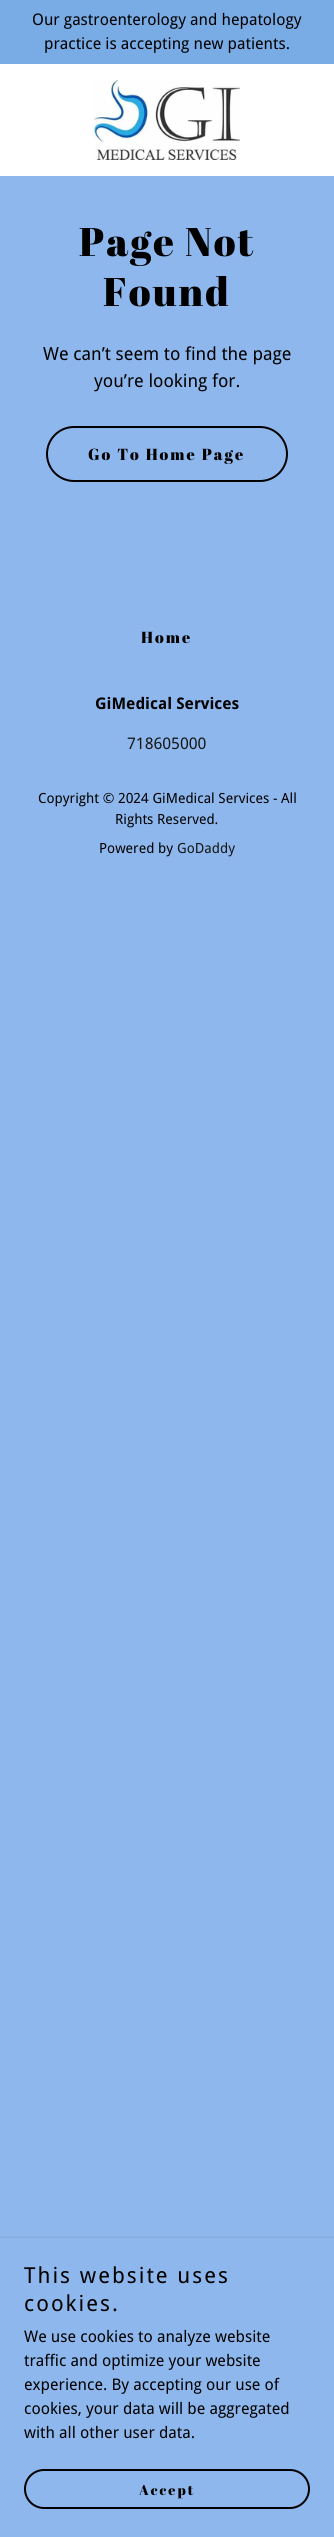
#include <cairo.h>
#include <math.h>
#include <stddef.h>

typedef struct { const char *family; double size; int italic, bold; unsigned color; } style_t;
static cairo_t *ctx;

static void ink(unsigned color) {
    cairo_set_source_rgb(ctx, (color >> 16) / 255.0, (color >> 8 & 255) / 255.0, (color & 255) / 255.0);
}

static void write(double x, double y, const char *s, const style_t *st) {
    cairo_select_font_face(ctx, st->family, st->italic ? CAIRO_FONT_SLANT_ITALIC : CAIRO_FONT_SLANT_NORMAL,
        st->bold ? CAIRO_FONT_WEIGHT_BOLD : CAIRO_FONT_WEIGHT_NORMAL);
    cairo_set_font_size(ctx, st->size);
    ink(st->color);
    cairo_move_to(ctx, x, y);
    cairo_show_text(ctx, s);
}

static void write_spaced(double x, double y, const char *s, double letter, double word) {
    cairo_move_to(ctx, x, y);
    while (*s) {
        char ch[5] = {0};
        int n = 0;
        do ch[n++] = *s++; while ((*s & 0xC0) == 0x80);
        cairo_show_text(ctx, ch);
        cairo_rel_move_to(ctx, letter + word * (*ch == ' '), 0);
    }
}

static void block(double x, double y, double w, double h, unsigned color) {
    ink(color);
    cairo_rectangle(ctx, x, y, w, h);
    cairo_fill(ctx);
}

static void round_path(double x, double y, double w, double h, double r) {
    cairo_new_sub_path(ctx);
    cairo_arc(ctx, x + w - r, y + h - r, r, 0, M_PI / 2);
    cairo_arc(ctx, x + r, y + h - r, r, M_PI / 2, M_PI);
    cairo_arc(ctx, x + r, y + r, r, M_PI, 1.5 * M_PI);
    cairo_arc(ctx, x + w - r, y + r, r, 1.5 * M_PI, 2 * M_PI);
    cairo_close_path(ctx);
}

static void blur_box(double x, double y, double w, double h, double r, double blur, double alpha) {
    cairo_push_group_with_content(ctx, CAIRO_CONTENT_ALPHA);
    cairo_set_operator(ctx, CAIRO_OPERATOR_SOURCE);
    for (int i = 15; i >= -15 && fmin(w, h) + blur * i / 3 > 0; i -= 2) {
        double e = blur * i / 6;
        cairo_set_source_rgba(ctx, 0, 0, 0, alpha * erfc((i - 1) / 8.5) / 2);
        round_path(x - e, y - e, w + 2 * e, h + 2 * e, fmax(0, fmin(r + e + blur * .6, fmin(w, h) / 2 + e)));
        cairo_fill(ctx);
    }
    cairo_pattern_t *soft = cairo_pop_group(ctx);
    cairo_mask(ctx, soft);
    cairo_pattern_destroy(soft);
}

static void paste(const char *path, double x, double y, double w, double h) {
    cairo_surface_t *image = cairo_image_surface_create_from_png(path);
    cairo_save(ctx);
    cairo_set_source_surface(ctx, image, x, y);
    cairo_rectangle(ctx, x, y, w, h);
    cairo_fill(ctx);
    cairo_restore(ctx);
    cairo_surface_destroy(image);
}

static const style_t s1 = {"Droid Sans", 16, 0, 0, 0x000000};
static const style_t s2 = {"Droid Sans", 18, 0, 0, 0x000000};
static const style_t s3 = {"Droid Sans", 16, 0, 1, 0x000000};
static const style_t s4 = {"Droid Sans", 16, 0, 0, 0x161616};
static const style_t s5 = {"Droid Sans", 14, 0, 0, 0x000000};
static const style_t s6 = {"Droid Sans", 14, 0, 0, 0x161616};

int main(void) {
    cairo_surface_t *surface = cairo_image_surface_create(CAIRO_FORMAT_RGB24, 334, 2537);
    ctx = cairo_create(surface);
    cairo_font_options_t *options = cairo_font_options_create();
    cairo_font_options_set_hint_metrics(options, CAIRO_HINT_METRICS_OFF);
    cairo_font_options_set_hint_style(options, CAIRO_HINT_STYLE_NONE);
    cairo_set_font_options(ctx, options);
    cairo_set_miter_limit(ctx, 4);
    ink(0x8eb8ed);
    cairo_paint(ctx);
    block(0, 64, 334, 112, 0xffffff);
    block(0, 0, 334, 64, 0x79abe5);
    write(32, 25, "Our gastroenterology and hepatology", &s1);
    write(44, 49, "practice is accepting new patients.", &s1);
    paste("pic1.png", 94, 80, 146, 80);
    cairo_select_font_face(ctx, "Abril Fatface", CAIRO_FONT_SLANT_NORMAL, CAIRO_FONT_WEIGHT_NORMAL);
    cairo_set_font_size(ctx, 40);
    write_spaced(79, 256, "Page Not", 2, 0);
    write_spaced(103, 306, "Found", 2, 0);
    write(43, 360, "We can’t seem to find the page", &s2);
    write(94, 387, "you’re looking for.", &s2);
    round_path(47, 427, 240, 54, 27);
    cairo_stroke(ctx);
    cairo_select_font_face(ctx, "Abril Fatface", CAIRO_FONT_SLANT_NORMAL, CAIRO_FONT_WEIGHT_NORMAL);
    cairo_set_font_size(ctx, 16);
    write_spaced(88, 460, "Go To Home Page", 2, 0);
    write_spaced(141, 643, "Home", 2, 0);
    write(95, 709, "GiMedical Services", &s3);
    write(127, 749, "718605000", &s4);
    write(38, 803, "Copyright © 2024 GiMedical Services - All", &s5);
    write(115, 824, "Rights Reserved.", &s5);
    write(99, 853, "Powered by", &s5);
    write(177, 853, "GoDaddy", &s6);
    cairo_save(ctx);
    cairo_rectangle(ctx, 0, 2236, 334, 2);
    cairo_clip(ctx);
    ink(0x000000);
    blur_box(0, 2240, 334, 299, 0, 3, 0.3);
    cairo_restore(ctx);
    cairo_set_font_size(ctx, 22);
    ink(0x000000);
    write_spaced(24, 2283, "This website uses", 2, 0);
    write_spaced(24, 2311, "cookies.", 2, 0);
    write(24, 2342, "We use cookies to analyze website", &s1);
    write(24, 2366, "traffic and optimize your website", &s1);
    write(24, 2390, "experience. By accepting our use of", &s1);
    write(24, 2414, "cookies, your data will be aggregated", &s1);
    write(24, 2438, "with all other user data.", &s1);
    round_path(25, 2470, 284, 38, 19);
    cairo_stroke(ctx);
    cairo_select_font_face(ctx, "Abril Fatface", CAIRO_FONT_SLANT_NORMAL, CAIRO_FONT_WEIGHT_NORMAL);
    cairo_set_font_size(ctx, 14);
    write_spaced(139, 2495, "Accept", 2, 0);
    cairo_surface_write_to_png(surface, "screenshot.png");
    cairo_font_options_destroy(options);
    cairo_destroy(ctx);
    cairo_surface_destroy(surface);
    return 0;
}
